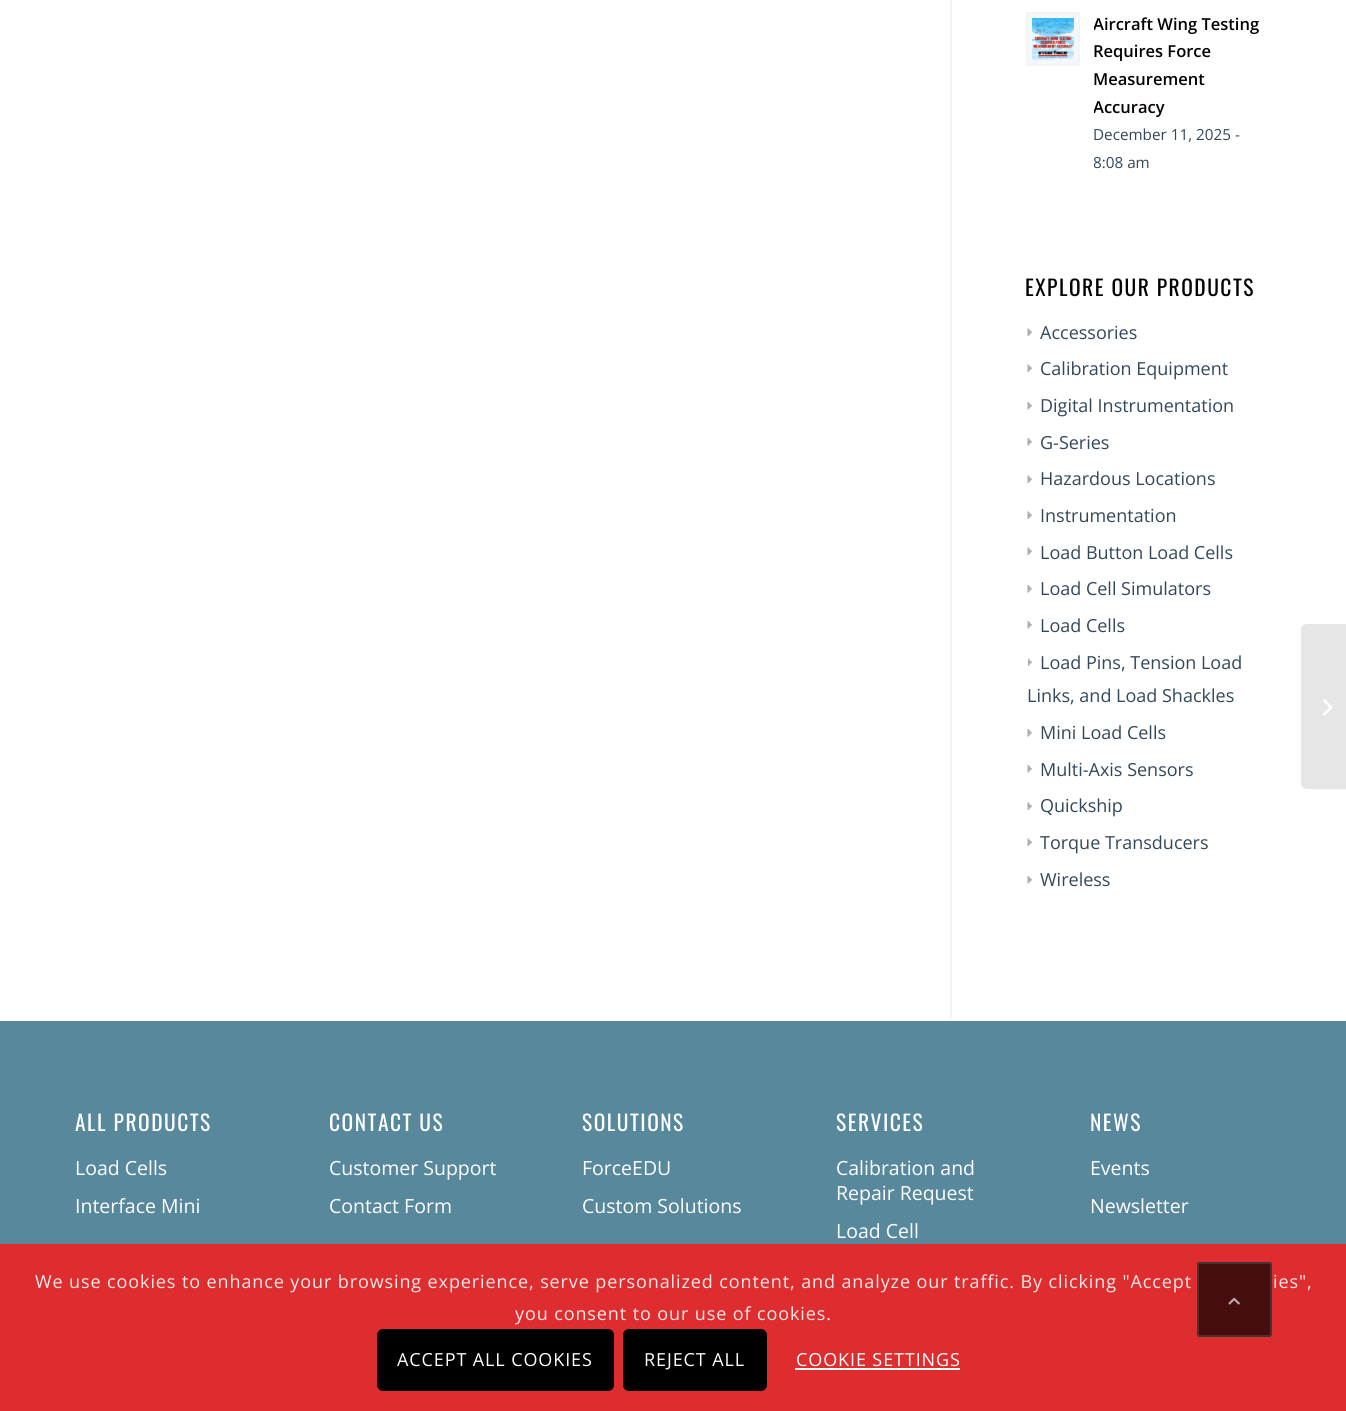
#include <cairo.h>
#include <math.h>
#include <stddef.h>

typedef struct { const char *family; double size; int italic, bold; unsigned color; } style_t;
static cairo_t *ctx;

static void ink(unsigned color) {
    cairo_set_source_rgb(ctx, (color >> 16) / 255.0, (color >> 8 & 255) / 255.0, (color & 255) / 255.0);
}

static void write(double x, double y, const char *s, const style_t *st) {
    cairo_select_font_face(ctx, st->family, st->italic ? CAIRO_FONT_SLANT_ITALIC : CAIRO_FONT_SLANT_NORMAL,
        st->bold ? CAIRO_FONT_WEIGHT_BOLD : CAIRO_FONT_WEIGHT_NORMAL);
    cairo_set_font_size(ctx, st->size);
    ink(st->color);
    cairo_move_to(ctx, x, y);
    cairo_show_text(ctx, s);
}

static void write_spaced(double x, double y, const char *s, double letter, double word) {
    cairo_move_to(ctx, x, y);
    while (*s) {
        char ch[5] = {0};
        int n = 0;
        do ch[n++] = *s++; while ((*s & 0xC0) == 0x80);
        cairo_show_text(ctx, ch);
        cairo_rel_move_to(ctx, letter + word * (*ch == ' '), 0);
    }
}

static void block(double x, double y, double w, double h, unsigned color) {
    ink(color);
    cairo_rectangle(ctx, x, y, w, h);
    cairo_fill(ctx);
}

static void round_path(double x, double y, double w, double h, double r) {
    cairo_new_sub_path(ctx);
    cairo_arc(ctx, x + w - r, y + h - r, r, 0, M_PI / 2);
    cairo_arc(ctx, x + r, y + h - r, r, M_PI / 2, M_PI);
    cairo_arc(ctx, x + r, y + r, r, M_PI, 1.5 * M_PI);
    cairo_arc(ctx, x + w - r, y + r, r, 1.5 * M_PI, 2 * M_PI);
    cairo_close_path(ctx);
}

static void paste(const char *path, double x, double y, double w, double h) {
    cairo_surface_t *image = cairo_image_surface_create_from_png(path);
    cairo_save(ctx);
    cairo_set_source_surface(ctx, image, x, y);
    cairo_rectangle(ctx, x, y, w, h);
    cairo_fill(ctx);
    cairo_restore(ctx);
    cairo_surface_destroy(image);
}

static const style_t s1 = {"Open Sans SemiBold", 16.5, 0, 0, 0x050000};
static const style_t s2 = {"Open Sans", 15.25, 0, 0, 0x33475b};
static const style_t s3 = {"Open Sans", 18, 0, 0, 0x33475b};
static const style_t s4 = {"Open Sans", 19.5, 0, 0, 0xffffff};

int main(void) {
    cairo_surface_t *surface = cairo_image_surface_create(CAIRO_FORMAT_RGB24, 1346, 1411);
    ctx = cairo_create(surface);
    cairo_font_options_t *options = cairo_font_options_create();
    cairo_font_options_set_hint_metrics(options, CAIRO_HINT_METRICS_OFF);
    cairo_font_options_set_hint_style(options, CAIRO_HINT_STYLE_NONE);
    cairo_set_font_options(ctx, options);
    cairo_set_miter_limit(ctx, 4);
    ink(0xffffff);
    cairo_paint(ctx);
    block(950, 0, 2, 1019, 0xf4f4f4);
    ink(0xf5f8fa);
    cairo_rectangle(ctx, 1027, 13, 52, 52);
    cairo_fill_preserve(ctx);
    ink(0xf4f4f4);
    cairo_stroke(ctx);
    paste("pic1.png", 1032, 18, 42, 42);
    cairo_save(ctx);
    cairo_rectangle(ctx, 1094, 11, 178, 165);
    cairo_clip(ctx);
    write(1093, 30, "Aircraft Wing Testing", &s1);
    cairo_restore(ctx);
    write(1093, 57, "Requires Force", &s1);
    write(1093, 85, "Measurement", &s1);
    cairo_save(ctx);
    cairo_rectangle(ctx, 1094, 11, 178, 165);
    cairo_clip(ctx);
    write(1093, 113, "Accuracy", &s1);
    cairo_restore(ctx);
    write(1093, 140, "December 11, 2025 -", &s2);
    cairo_save(ctx);
    cairo_rectangle(ctx, 1094, 11, 178, 165);
    cairo_clip(ctx);
    write(1093, 168, "8:08 am", &s2);
    cairo_restore(ctx);
    cairo_select_font_face(ctx, "Oswald", CAIRO_FONT_SLANT_NORMAL, CAIRO_FONT_WEIGHT_NORMAL);
    cairo_set_font_size(ctx, 21.5);
    ink(0x050000);
    write_spaced(1025, 296, "EXPLORE OUR PRODUCTS", 1.5, 0);
    paste("pic2.png", 1027, 328, 5, 8);
    write(1040, 339, "Accessories", &s3);
    paste("pic2.png", 1027, 364, 5, 8);
    write(1040, 375, "Calibration Equipment", &s3);
    paste("pic3.png", 1027, 402, 5, 8);
    write(1040, 412, "Digital Instrumentation", &s3);
    paste("pic3.png", 1027, 438, 5, 8);
    write(1040, 449, "G-Series", &s3);
    paste("pic2.png", 1027, 475, 5, 8);
    write(1040, 485, "Hazardous Locations", &s3);
    paste("pic2.png", 1027, 511, 5, 8);
    write(1040, 522, "Instrumentation", &s3);
    paste("pic2.png", 1027, 547, 5, 8);
    write(1040, 559, "Load Button Load Cells", &s3);
    paste("pic3.png", 1027, 585, 5, 8);
    write(1040, 595, "Load Cell Simulators", &s3);
    paste("pic3.png", 1027, 621, 5, 8);
    write(1040, 632, "Load Cells", &s3);
    paste("pic4.png", 1028, 658, 4, 8);
    write(1040, 669, "Load Pins, Tension Load", &s3);
    write(1027, 702, "Links, and Load Shackles", &s3);
    paste("pic3.png", 1027, 729, 5, 8);
    write(1040, 739, "Mini Load Cells", &s3);
    paste("pic3.png", 1027, 765, 5, 8);
    write(1040, 776, "Multi-Axis Sensors", &s3);
    paste("pic2.png", 1027, 802, 5, 8);
    write(1040, 812, "Quickship", &s3);
    paste("pic2.png", 1027, 838, 5, 8);
    write(1040, 849, "Torque Transducers", &s3);
    paste("pic3.png", 1027, 876, 5, 8);
    write(1040, 886, "Wireless", &s3);
    block(0, 1021, 1346, 223, 0x57889c);
    cairo_select_font_face(ctx, "Oswald", CAIRO_FONT_SLANT_NORMAL, CAIRO_FONT_WEIGHT_NORMAL);
    cairo_set_font_size(ctx, 21.5);
    ink(0xffffff);
    write_spaced(75, 1131, "ALL PRODUCTS", 1.5, 0);
    write(75, 1175, "Load Cells", &s4);
    write(75, 1213, "Interface Mini", &s4);
    cairo_select_font_face(ctx, "Oswald", CAIRO_FONT_SLANT_NORMAL, CAIRO_FONT_WEIGHT_NORMAL);
    cairo_set_font_size(ctx, 21.5);
    write_spaced(329, 1131, "CONTACT US", 1.5, 0);
    write(329, 1175, "Customer Support", &s4);
    write(329, 1213, "Contact Form", &s4);
    cairo_select_font_face(ctx, "Oswald", CAIRO_FONT_SLANT_NORMAL, CAIRO_FONT_WEIGHT_NORMAL);
    cairo_set_font_size(ctx, 21.5);
    write_spaced(582, 1131, "SOLUTIONS", 1.5, 0);
    write(582, 1175, "ForceEDU", &s4);
    write(582, 1213, "Custom Solutions", &s4);
    cairo_select_font_face(ctx, "Oswald", CAIRO_FONT_SLANT_NORMAL, CAIRO_FONT_WEIGHT_NORMAL);
    cairo_set_font_size(ctx, 21.5);
    write_spaced(836, 1131, "SERVICES", 1.5, 0);
    write(836, 1175, "Calibration and", &s4);
    write(836, 1200, "Repair Request", &s4);
    write(836, 1238, "Load Cell", &s4);
    cairo_select_font_face(ctx, "Oswald", CAIRO_FONT_SLANT_NORMAL, CAIRO_FONT_WEIGHT_NORMAL);
    cairo_set_font_size(ctx, 21.5);
    write_spaced(1090, 1131, "NEWS", 1.5, 0);
    write(1090, 1175, "Events", &s4);
    write(1090, 1213, "Newsletter", &s4);
    ink(0xe6e6e6);
    cairo_new_path(ctx);
    cairo_move_to(ctx, 1307, 624);
    cairo_line_to(ctx, 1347, 624);
    cairo_line_to(ctx, 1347, 789);
    cairo_line_to(ctx, 1307, 789);
    cairo_curve_to(ctx, 1303.5, 789, 1301, 786.5, 1301, 783);
    cairo_line_to(ctx, 1301, 630);
    cairo_curve_to(ctx, 1301, 626.5, 1303.5, 624, 1307, 624);
    cairo_close_path(ctx);
    cairo_fill(ctx);
    paste("pic5.png", 1323, 699, 10, 17);
    block(0, 1244, 1346, 167, 0xdf2c2f);
    cairo_set_source_rgba(ctx, 0.02, 0, 0, 0.7);
    round_path(1197, 1262, 75, 75, 3);
    cairo_fill(ctx);
    round_path(1198, 1263, 73, 73, 2);
    cairo_set_source_rgba(ctx, 0.267, 0.267, 0.267, 0.7);
    cairo_stroke(ctx);
    paste("pic6.png", 1228, 1297, 12, 8);
    cairo_set_font_size(ctx, 18);
    ink(0xfceaea);
    write_spaced(35, 1288, "We use cookies to enhance your browsing experience, serve personalized content, and analyze our traffic. By clicking \"Accept", 0.9, 0);
    write_spaced(1273, 1288, "ies\",", 0.9, 0);
    write_spaced(515, 1320, "you consent to our use of cookies.", 0.9, 0);
    ink(0x000000);
    round_path(378, 1330, 235, 60, 5);
    cairo_fill_preserve(ctx);
    cairo_stroke(ctx);
    ink(0xffffff);
    write_spaced(397, 1366, "ACCEPT ALL COOKIES", 0.9, 0);
    ink(0x000000);
    round_path(624, 1330, 142, 60, 5);
    cairo_fill_preserve(ctx);
    cairo_stroke(ctx);
    ink(0xffffff);
    write_spaced(644, 1366, "REJECT ALL", 0.9, 0);
    write_spaced(796, 1366, "COOKIE SETTINGS", 0.9, 0);
    block(795, 1368, 165, 2, 0xffffff);
    cairo_surface_write_to_png(surface, "screenshot.png");
    cairo_font_options_destroy(options);
    cairo_destroy(ctx);
    cairo_surface_destroy(surface);
    return 0;
}
